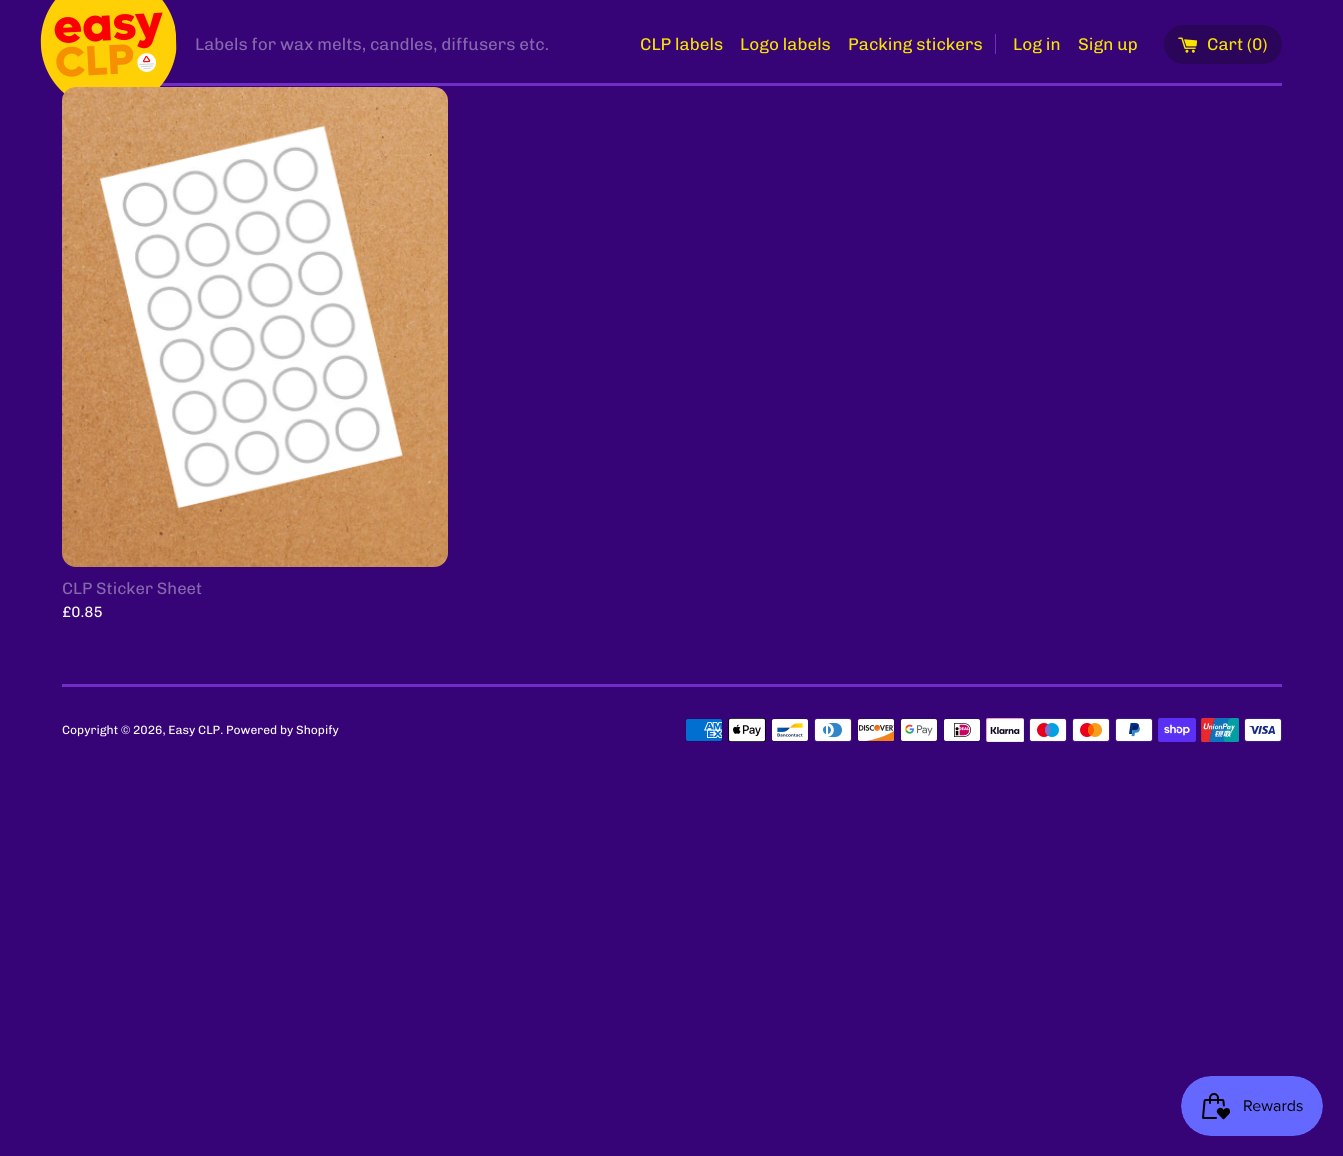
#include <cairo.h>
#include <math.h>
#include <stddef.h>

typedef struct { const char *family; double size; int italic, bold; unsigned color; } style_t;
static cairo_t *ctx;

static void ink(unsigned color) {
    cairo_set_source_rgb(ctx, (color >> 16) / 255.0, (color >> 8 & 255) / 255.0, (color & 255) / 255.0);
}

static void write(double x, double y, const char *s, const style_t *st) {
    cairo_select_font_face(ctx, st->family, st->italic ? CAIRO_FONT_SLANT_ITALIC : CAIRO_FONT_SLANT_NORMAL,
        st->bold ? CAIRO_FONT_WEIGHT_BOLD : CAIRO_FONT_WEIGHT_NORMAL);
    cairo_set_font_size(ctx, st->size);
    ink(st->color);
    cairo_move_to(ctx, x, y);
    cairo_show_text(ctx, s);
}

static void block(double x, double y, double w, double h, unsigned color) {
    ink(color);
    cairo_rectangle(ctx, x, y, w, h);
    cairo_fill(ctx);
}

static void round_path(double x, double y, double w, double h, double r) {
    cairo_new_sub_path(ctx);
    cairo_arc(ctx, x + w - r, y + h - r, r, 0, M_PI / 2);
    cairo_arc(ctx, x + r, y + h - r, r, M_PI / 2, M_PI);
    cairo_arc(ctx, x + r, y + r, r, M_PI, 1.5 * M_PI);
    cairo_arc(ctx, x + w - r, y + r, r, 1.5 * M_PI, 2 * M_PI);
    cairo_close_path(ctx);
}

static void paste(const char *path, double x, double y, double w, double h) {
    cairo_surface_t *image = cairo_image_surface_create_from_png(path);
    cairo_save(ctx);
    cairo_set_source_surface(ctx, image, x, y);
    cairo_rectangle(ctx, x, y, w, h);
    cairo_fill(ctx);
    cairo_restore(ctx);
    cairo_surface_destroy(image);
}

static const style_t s1 = {"Chivo", 17, 0, 0, 0x8668ad};
static const style_t s2 = {"Chivo", 17, 0, 0, 0xf7e500};
static const style_t s3 = {"Chivo", 16.5, 0, 0, 0x8668ad};
static const style_t s4 = {"Chivo", 15, 0, 0, 0xffffff};
static const style_t s5 = {"Chivo", 12, 0, 0, 0xffffff};

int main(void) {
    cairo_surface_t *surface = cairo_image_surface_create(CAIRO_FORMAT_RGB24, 1343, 1156);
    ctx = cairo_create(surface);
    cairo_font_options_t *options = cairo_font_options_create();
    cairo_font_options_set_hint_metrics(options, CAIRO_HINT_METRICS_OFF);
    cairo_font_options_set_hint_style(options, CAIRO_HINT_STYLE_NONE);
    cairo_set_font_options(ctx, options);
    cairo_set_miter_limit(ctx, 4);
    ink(0x360477);
    cairo_paint(ctx);
    block(160, 83, 1122, 3, 0x712ec7);
    paste("pic1.png", 40, 0, 137, 94);
    write(195, 50, "Labels for wax melts, candles, diffusers etc.", &s1);
    write(640, 50, "CLP labels", &s2);
    write(740, 50, "Logo labels", &s2);
    write(848, 50, "Packing stickers", &s2);
    block(995, 34, 1, 20, 0x712ec6);
    write(1013, 50, "Log in", &s2);
    write(1078, 50, "Sign up", &s2);
    ink(0x2a055a);
    round_path(1164, 25, 118, 39, 19.5);
    cairo_fill(ctx);
    paste("pic2.png", 1178, 37, 20, 16);
    write(1207, 50, "Cart (0)", &s2);
    paste("pic3.png", 62, 87, 386, 480);
    paste("pic4.png", 99, 125, 304, 384);
    write(62, 594, "CLP Sticker Sheet", &s3);
    write(62, 617, "£0.85", &s4);
    block(62, 684, 1220, 3, 0x712ec7);
    write(62, 734, "Copyright © 2026, Easy CLP. Powered by Shopify", &s5);
    paste("pic5.png", 685, 718, 38, 24);
    paste("pic6.png", 728, 718, 38, 24);
    paste("pic7.png", 771, 718, 38, 24);
    paste("pic8.png", 814, 718, 38, 24);
    paste("pic9.png", 857, 718, 38, 24);
    paste("pic10.png", 900, 718, 38, 24);
    paste("pic11.png", 943, 718, 38, 24);
    paste("pic12.png", 986, 718, 38, 24);
    paste("pic13.png", 1029, 718, 38, 24);
    paste("pic14.png", 1072, 718, 38, 24);
    paste("pic15.png", 1115, 718, 38, 24);
    paste("pic16.png", 1158, 718, 38, 24);
    paste("pic17.png", 1201, 718, 38, 24);
    paste("pic18.png", 1244, 718, 38, 24);
    paste("pic19.png", 1181, 1076, 142, 60);
    cairo_surface_write_to_png(surface, "screenshot.png");
    cairo_font_options_destroy(options);
    cairo_destroy(ctx);
    cairo_surface_destroy(surface);
    return 0;
}
